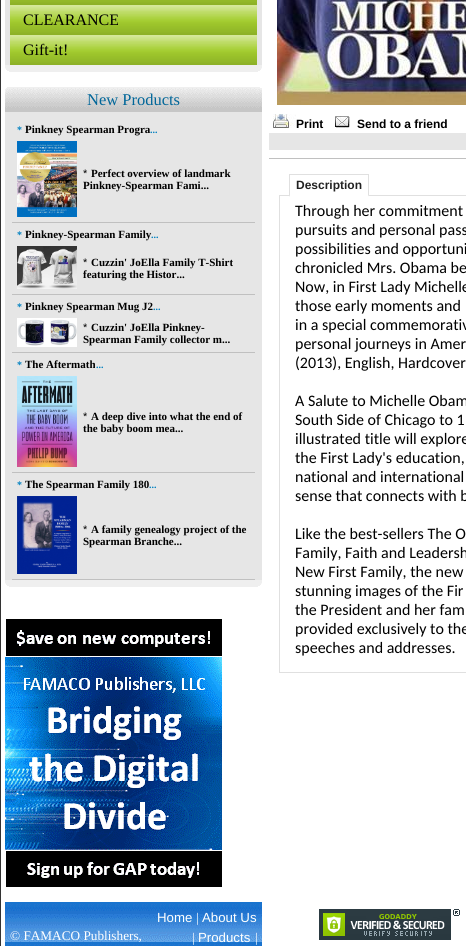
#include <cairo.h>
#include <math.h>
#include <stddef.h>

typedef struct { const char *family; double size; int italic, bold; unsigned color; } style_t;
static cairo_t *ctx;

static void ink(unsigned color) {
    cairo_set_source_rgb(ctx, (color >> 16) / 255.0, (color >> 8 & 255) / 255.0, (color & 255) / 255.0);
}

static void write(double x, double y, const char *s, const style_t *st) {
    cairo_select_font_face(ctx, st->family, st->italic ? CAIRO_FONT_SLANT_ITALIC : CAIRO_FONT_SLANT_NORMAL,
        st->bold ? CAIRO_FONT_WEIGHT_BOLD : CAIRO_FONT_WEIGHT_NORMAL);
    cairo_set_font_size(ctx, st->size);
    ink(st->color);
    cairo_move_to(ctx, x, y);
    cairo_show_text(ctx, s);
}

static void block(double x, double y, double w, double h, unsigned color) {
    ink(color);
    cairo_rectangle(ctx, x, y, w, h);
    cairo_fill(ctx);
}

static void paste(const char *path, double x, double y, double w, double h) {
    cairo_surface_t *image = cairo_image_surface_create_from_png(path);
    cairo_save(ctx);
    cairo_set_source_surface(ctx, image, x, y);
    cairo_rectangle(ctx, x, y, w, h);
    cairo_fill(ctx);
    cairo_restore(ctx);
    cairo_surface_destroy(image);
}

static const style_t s1 = {"Liberation Serif", 16, 0, 0, 0x000000};
static const style_t s2 = {"Liberation Serif", 16.5, 0, 0, 0x006699};
static const style_t s3 = {"Liberation Serif", 10, 0, 1, 0x0080c0};
static const style_t s4 = {"Liberation Serif", 11, 0, 1, 0x000000};
static const style_t s5 = {"Liberation Sans", 11, 0, 0, 0x000000};
static const style_t s6 = {"Liberation Sans", 12, 0, 1, 0x000000};
static const style_t s7 = {"Liberation Sans", 12, 0, 1, 0x222222};
static const style_t s8 = {"Carlito", 16, 0, 0, 0x000000};
static const style_t s9 = {"Liberation Serif", 13.25, 0, 0, 0xffffff};
static const style_t s10 = {"Liberation Sans", 13.25, 0, 0, 0xffffff};

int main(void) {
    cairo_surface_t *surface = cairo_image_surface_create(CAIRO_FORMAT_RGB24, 466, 946);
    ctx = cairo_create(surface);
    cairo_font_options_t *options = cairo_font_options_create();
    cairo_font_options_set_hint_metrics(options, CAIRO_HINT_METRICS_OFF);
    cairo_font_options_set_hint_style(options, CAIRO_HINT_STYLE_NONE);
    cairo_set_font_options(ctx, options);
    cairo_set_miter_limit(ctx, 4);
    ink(0xffffff);
    cairo_paint(ctx);
    cairo_rectangle(ctx, 0.5, -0.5, 465, 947);
    ink(0x333333);
    cairo_set_line_width(ctx, 1);
    cairo_stroke(ctx);
    block(465, 0, 1, 946, 0xffffff);
    block(5, 0, 5, 65, 0xe6e6e6);
    paste("pic1.png", 10, 0, 247, 5);
    paste("pic2.png", 10, 5, 247, 30);
    write(23, 25, "CLEARANCE", &s1);
    paste("pic2.png", 10, 35, 247, 30);
    write(23, 55, "Gift-it!", &s1);
    block(257, 0, 5, 65, 0xe6e6e6);
    paste("pic3.png", 5, 65, 5, 7);
    block(10, 65, 247, 7, 0xefefef);
    paste("pic4.png", 257, 65, 5, 7);
    paste("pic5.png", 5, 87, 5, 25);
    paste("pic6.png", 5, 87, 4, 5);
    paste("pic7.png", 10, 87, 247, 25);
    write(87, 105, "New Products", &s2);
    paste("pic5.png", 257, 87, 5, 25);
    paste("pic8.png", 260, 87, 2, 3);
    block(5, 112, 257, 468, 0xe6e6e6);
    write(17, 133, "*", &s3);
    write(25, 133, "Pinkney Spearman Progra", &s4);
    write(150, 133, "...", &s3);
    paste("pic9.png", 17, 141, 60, 76);
    write(83, 177, "*", &s5);
    write(91, 177, "Perfect overview of landmark", &s4);
    write(83, 189, "Pinkney-Spearman Fami...", &s4);
    block(12, 222, 243, 1, 0xc0c0c0);
    write(17, 238, "*", &s3);
    write(25, 238, "Pinkney-Spearman Family", &s4);
    write(151, 238, "...", &s3);
    paste("pic10.png", 17, 246, 60, 43);
    write(83, 266, "*", &s5);
    write(91, 266, "Cuzzin' JoElla Family T-Shirt", &s4);
    write(83, 278, "featuring the Histor...", &s4);
    block(12, 294, 243, 1, 0xc0c0c0);
    write(17, 310, "*", &s3);
    write(25, 310, "Pinkney Spearman Mug J2", &s4);
    write(153, 310, "...", &s3);
    paste("pic11.png", 17, 318, 60, 29);
    write(83, 331, "*", &s5);
    write(91, 331, "Cuzzin' JoElla Pinkney-", &s4);
    write(83, 343, "Spearman Family collector m...", &s4);
    block(12, 352, 243, 1, 0xc0c0c0);
    write(17, 368, "*", &s3);
    write(25, 368, "The Aftermath", &s4);
    write(96, 368, "...", &s3);
    paste("pic12.png", 17, 376, 60, 91);
    write(83, 420, "*", &s5);
    write(91, 420, "A deep dive into what the end of", &s4);
    write(83, 432, "the baby boom mea...", &s4);
    block(12, 472, 243, 1, 0xc0c0c0);
    write(17, 488, "*", &s3);
    write(25, 488, "The Spearman Family 180", &s4);
    write(149, 488, "...", &s3);
    paste("pic13.png", 17, 496, 60, 78);
    write(83, 533, "*", &s5);
    write(91, 533, "A family genealogy project of the", &s4);
    write(83, 545, "Spearman Branche...", &s4);
    block(12, 579, 243, 1, 0xc0c0c0);
    paste("pic3.png", 5, 580, 5, 7);
    block(10, 580, 247, 7, 0xefefef);
    paste("pic4.png", 257, 580, 5, 7);
    paste("pic14.png", 5, 619, 217, 268);
    paste("pic15.png", 277, 0, 189, 105);
    paste("pic16.png", 273, 114, 23, 14);
    write(296, 128, "Print", &s6);
    paste("pic17.png", 335, 116, 15, 12);
    write(357, 128, "Send to a friend", &s6);
    block(269, 133, 197, 17, 0xe6e6e6);
    block(269, 158, 197, 1, 0xc0c0c0);
    write(296, 189, "Description", &s7);
    block(289, 174, 80, 1, 0xe0e0e0);
    cairo_rectangle(ctx, 279.5, 195.5, 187, 477);
    cairo_stroke(ctx);
    cairo_new_path(ctx);
    cairo_move_to(ctx, 369, 174);
    cairo_line_to(ctx, 369, 197);
    cairo_line_to(ctx, 368, 195);
    cairo_line_to(ctx, 368, 175);
    cairo_close_path(ctx);
    cairo_fill(ctx);
    ink(0xffffff);
    cairo_new_path(ctx);
    cairo_move_to(ctx, 369, 197);
    cairo_line_to(ctx, 289, 197);
    cairo_line_to(ctx, 290, 195);
    cairo_line_to(ctx, 368, 195);
    cairo_close_path(ctx);
    cairo_fill(ctx);
    ink(0xe0e0e0);
    cairo_new_path(ctx);
    cairo_move_to(ctx, 289, 197);
    cairo_line_to(ctx, 289, 174);
    cairo_line_to(ctx, 290, 175);
    cairo_line_to(ctx, 290, 195);
    cairo_close_path(ctx);
    cairo_fill(ctx);
    write(295, 216, "Through her commitment", &s8);
    write(295, 235, "pursuits and personal pass", &s8);
    write(295, 254, "possibilities and opportuni", &s8);
    write(295, 273, "chronicled Mrs. Obama be", &s8);
    write(295, 292, "Now, in First Lady Michelle", &s8);
    write(295, 311, "those early moments and", &s8);
    write(295, 330, "in a special commemorativ", &s8);
    write(295, 349, "personal journeys in Amer", &s8);
    write(295, 368, "(2013), English, Hardcover", &s8);
    write(295, 406, "A Salute to Michelle Obam", &s8);
    write(295, 425, "South Side of Chicago to 1", &s8);
    write(295, 444, "illustrated title will explore", &s8);
    write(295, 463, "the First Lady's education,", &s8);
    write(295, 482, "national and international", &s8);
    write(295, 501, "sense that connects with b", &s8);
    write(295, 539, "Like the best-sellers The O", &s8);
    write(295, 558, "Family, Faith and Leadersh", &s8);
    write(295, 577, "New First Family, the new", &s8);
    write(295, 596, "stunning images of the Fir", &s8);
    write(295, 615, "the President and her fam", &s8);
    write(295, 634, "provided exclusively to the", &s8);
    write(295, 653, "speeches and addresses.", &s8);
    paste("pic18.png", 5, 902, 257, 44);
    write(10, 940, "© FAMACO Publishers,", &s9);
    write(157, 922, "Home", &s10);
    write(196, 922, "|", &s9);
    write(202, 922, "About Us", &s10);
    write(192, 942, "|", &s9);
    write(198, 942, "Products", &s10);
    write(255, 942, "|", &s9);
    paste("pic19.png", 319, 909, 141, 31);
    cairo_surface_write_to_png(surface, "screenshot.png");
    cairo_font_options_destroy(options);
    cairo_destroy(ctx);
    cairo_surface_destroy(surface);
    return 0;
}
